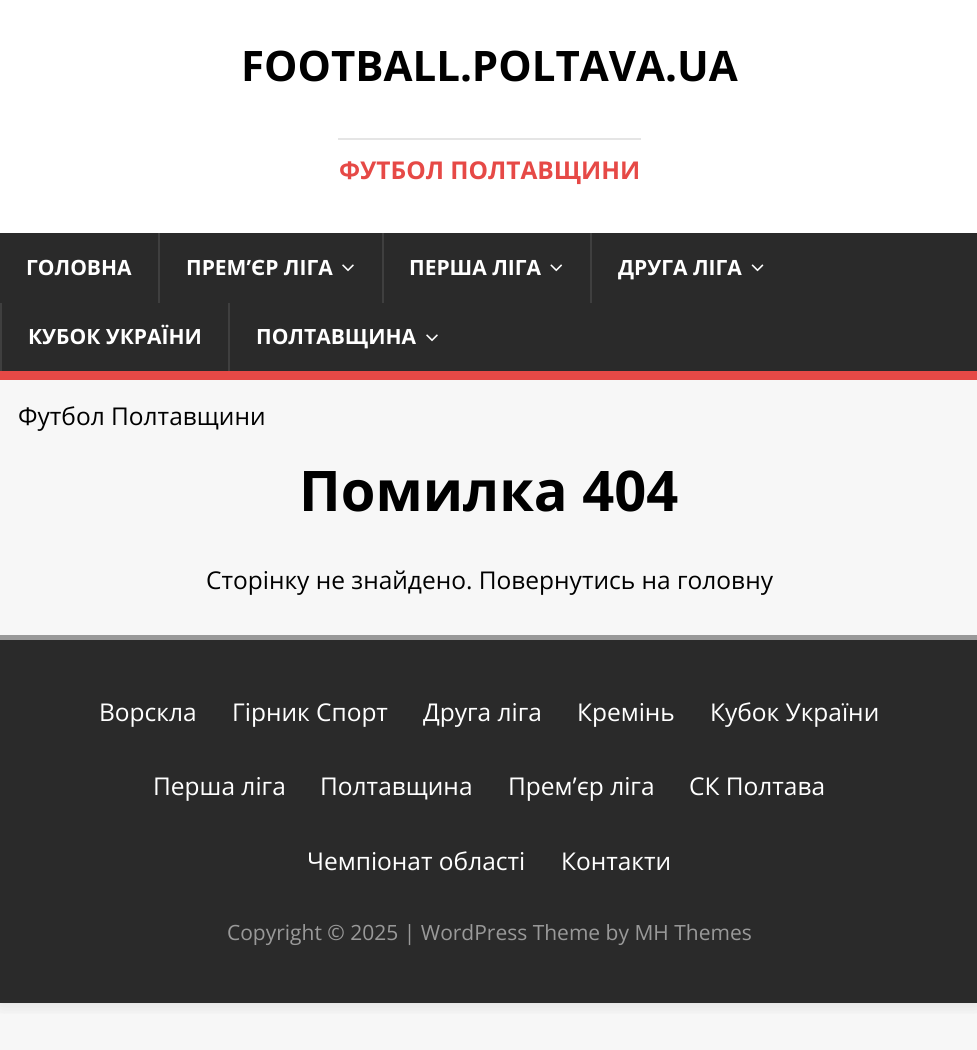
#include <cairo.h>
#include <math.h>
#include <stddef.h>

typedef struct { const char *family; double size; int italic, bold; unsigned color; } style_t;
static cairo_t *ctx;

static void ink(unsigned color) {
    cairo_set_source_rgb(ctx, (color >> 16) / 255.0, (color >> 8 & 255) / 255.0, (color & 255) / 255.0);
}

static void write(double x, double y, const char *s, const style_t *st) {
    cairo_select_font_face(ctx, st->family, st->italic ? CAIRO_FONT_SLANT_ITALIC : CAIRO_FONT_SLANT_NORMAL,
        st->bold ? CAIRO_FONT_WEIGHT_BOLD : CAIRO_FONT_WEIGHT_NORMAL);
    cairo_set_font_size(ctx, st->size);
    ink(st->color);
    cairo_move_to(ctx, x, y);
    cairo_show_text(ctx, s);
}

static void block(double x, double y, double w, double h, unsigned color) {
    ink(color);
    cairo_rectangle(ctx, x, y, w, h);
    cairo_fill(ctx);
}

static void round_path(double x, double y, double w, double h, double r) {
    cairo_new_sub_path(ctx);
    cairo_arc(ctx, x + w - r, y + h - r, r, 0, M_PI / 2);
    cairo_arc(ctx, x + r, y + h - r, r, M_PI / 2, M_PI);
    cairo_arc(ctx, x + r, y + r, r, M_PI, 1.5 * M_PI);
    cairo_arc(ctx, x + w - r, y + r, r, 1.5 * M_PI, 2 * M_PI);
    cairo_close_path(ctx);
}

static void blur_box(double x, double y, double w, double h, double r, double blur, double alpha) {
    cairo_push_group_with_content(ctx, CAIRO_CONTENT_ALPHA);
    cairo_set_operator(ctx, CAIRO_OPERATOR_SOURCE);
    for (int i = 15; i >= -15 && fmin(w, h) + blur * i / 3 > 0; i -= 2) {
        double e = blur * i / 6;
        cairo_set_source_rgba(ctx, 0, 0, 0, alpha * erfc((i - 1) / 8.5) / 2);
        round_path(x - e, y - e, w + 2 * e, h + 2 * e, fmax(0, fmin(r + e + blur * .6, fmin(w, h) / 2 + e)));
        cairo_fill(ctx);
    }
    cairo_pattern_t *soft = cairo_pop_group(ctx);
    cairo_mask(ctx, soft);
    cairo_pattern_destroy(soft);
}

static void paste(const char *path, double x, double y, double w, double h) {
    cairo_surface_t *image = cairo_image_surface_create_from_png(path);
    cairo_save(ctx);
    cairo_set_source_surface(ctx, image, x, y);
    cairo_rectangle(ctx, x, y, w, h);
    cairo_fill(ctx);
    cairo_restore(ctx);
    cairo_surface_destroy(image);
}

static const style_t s1 = {"Open Sans", 42, 0, 1, 0x000000};
static const style_t s2 = {"Open Sans", 24.5, 0, 1, 0xe64946};
static const style_t s3 = {"Open Sans", 21, 0, 1, 0xffffff};
static const style_t s4 = {"Open Sans", 24.5, 0, 0, 0x000000};
static const style_t s5 = {"Open Sans", 56, 0, 1, 0x000000};
static const style_t s6 = {"Open Sans", 24.5, 0, 0, 0xffffff};
static const style_t s7 = {"Open Sans", 21, 0, 0, 0x999999};

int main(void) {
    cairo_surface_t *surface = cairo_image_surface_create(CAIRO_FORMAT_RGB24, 977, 1050);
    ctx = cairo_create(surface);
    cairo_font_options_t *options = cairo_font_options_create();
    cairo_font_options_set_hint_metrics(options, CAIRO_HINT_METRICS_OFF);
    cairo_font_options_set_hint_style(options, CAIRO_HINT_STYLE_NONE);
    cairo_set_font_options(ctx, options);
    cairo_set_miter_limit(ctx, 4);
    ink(0xf7f7f7);
    cairo_paint(ctx);
    cairo_save(ctx);
    cairo_rectangle(ctx, 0, 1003, 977, 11);
    cairo_clip(ctx);
    ink(0x323232);
    blur_box(0, 0, 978, 1003, 0, 9, 0.17);
    cairo_restore(ctx);
    block(0, 0, 977, 233, 0xffffff);
    write(241, 81, "FOOTBALL.POLTAVA.UA", &s1);
    block(338, 138, 303, 2, 0xe5e5e5);
    write(339, 179, "ФУТБОЛ ПОЛТАВЩИНИ", &s2);
    block(0, 233, 977, 138, 0x2a2a2a);
    block(0, 371, 977, 9, 0xe64946);
    write(26, 275, "ГОЛОВНА", &s3);
    block(158, 233, 2, 70, 0x3f3f3f);
    write(186, 275, "ПРЕМ’ЄР ЛІГА", &s3);
    paste("pic1.png", 342, 264, 12, 8);
    block(382, 233, 2, 70, 0x3f3f3f);
    write(409, 275, "ПЕРША ЛІГА", &s3);
    paste("pic2.png", 550, 264, 13, 8);
    block(590, 233, 2, 70, 0x3f3f3f);
    write(618, 275, "ДРУГА ЛІГА", &s3);
    paste("pic3.png", 751, 264, 13, 8);
    block(0, 303, 2, 68, 0x3f3f3f);
    write(28, 344, "КУБОК УКРАЇНИ", &s3);
    block(228, 303, 2, 68, 0x3f3f3f);
    write(256, 344, "ПОЛТАВЩИНА", &s3);
    paste("pic1.png", 426, 334, 12, 8);
    write(18, 425, "Футбол Полтавщини", &s4);
    write(299, 511, "Помилка 404", &s5);
    write(206, 589, "Сторінку не знайдено. Повернутись на головну", &s4);
    block(0, 640, 977, 363, 0x2a2a2a);
    block(0, 635, 977, 5, 0x999999);
    write(99, 721, "Ворскла", &s6);
    write(232, 721, "Гірник Спорт", &s6);
    write(423, 721, "Друга ліга", &s6);
    write(577, 721, "Кремінь", &s6);
    write(710, 721, "Кубок України", &s6);
    write(153, 795, "Перша ліга", &s6);
    write(320, 795, "Полтавщина", &s6);
    write(508, 795, "Прем’єр ліга", &s6);
    write(689, 795, "СК Полтава", &s6);
    write(307, 870, "Чемпіонат області", &s6);
    write(561, 870, "Контакти", &s6);
    write(227, 940, "Copyright © 2025 | WordPress Theme by MH Themes", &s7);
    cairo_surface_write_to_png(surface, "screenshot.png");
    cairo_font_options_destroy(options);
    cairo_destroy(ctx);
    cairo_surface_destroy(surface);
    return 0;
}
